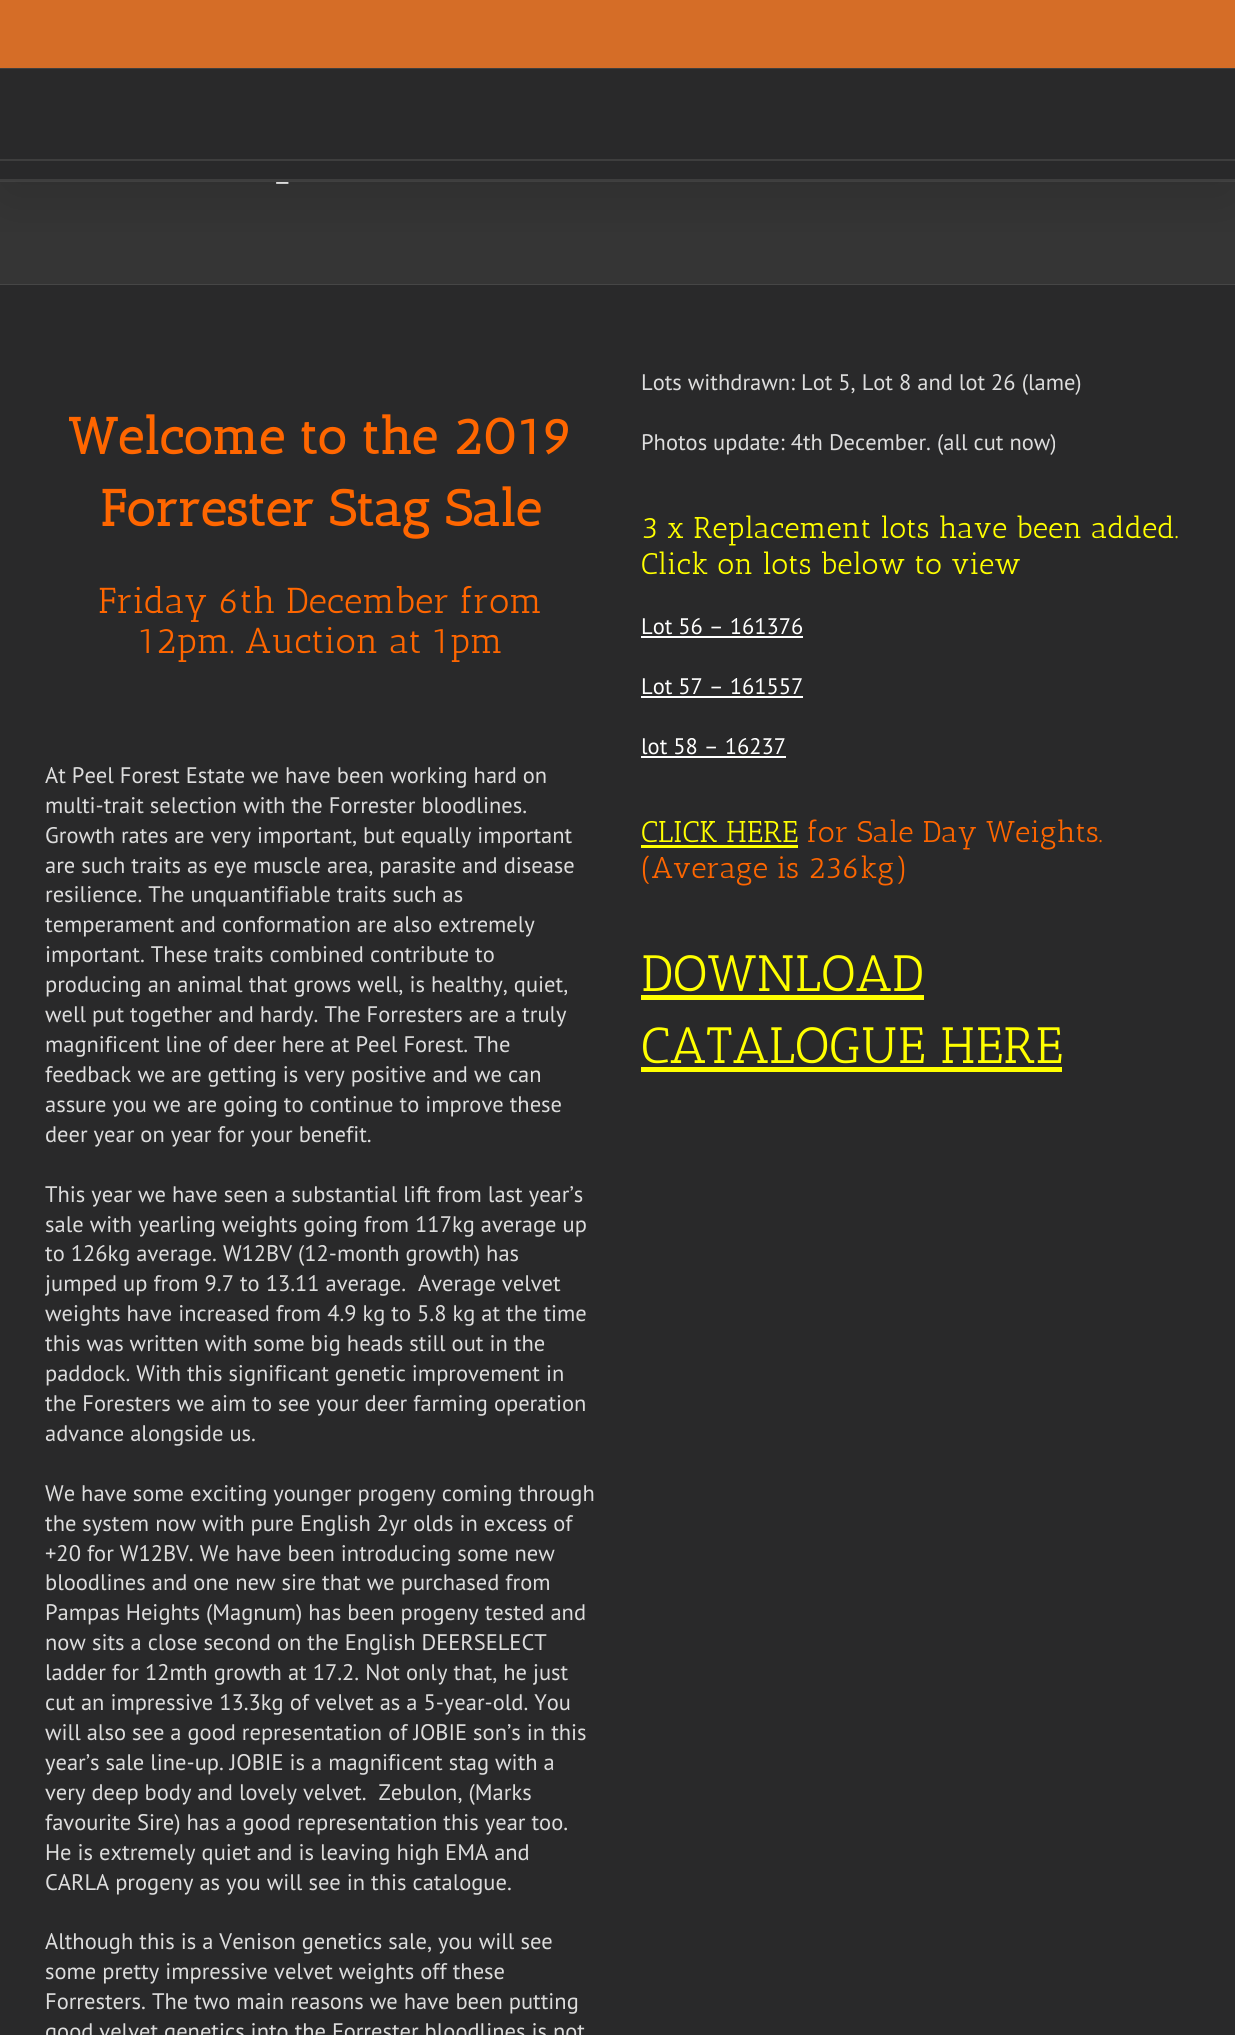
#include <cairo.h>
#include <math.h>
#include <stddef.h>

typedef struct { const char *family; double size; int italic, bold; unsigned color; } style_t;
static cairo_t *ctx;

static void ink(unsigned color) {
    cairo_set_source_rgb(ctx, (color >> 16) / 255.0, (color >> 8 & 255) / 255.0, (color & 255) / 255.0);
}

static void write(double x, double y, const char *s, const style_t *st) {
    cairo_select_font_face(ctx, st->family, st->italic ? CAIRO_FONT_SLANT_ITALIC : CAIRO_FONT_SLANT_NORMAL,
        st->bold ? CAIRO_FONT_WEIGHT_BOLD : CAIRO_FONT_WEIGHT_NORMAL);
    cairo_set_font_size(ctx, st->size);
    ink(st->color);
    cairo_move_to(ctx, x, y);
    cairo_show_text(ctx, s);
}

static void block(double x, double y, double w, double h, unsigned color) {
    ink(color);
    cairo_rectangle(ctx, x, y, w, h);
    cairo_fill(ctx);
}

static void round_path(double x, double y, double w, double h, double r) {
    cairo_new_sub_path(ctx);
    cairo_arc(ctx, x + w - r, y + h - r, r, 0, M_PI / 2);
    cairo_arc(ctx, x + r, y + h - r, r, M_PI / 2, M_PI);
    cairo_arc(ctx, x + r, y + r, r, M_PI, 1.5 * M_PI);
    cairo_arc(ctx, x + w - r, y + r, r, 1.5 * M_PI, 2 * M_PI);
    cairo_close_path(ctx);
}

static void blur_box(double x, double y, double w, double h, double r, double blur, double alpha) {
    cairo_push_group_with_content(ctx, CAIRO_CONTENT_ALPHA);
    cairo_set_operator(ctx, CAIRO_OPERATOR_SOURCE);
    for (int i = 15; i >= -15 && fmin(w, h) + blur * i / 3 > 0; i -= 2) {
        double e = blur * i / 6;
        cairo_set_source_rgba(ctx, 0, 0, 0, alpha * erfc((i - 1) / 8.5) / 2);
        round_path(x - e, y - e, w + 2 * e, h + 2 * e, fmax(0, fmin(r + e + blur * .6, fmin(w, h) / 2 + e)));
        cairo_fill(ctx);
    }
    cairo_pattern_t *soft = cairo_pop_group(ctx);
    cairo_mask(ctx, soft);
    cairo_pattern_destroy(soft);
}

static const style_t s1 = {"Antic Slab", 27, 0, 0, 0xffffff};
static const style_t s2 = {"Antic Slab", 51, 0, 1, 0xff6600};
static const style_t s3 = {"Antic Slab", 36, 0, 0, 0xff6600};
static const style_t s4 = {"PT Sans", 22.5, 0, 0, 0xdddddd};
static const style_t s5 = {"Antic Slab", 30, 0, 0, 0xffff00};
static const style_t s6 = {"PT Sans", 22.5, 0, 0, 0xffffff};
static const style_t s7 = {"Antic Slab", 30, 0, 0, 0xff6600};
static const style_t s8 = {"Antic Slab", 51, 0, 0, 0xffff00};

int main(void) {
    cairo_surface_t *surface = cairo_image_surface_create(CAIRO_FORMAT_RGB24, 1235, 2035);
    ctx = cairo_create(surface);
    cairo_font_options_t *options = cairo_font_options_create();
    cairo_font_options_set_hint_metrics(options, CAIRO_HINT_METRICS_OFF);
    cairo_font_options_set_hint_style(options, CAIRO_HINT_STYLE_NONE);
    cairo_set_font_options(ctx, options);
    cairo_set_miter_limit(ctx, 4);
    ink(0x29292a);
    cairo_paint(ctx);
    block(0, 182, 1235, 102, 0x353535);
    block(0, 181, 1235, 1, 0x464646);
    block(0, 284, 1235, 1, 0x464646);
    cairo_save(ctx);
    cairo_rectangle(ctx, 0, 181, 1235, 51);
    cairo_clip(ctx);
    ink(0x000000);
    blur_box(3, 18, 1230, 174, 0, 37.5, 0.14);
    cairo_restore(ctx);
    block(0, 0, 1235, 68, 0xd56d27);
    block(0, 68, 1235, 1, 0x3e3e3e);
    block(0, 159, 1235, 2, 0x3e3e3e);
    block(0, 179, 1235, 2, 0x3e3e3e);
    write(274, 190, "–", &s1);
    write(68, 454, "Welcome to the 2019", &s2);
    write(100, 526, "Forrester Stag Sale", &s2);
    write(98, 613, "Friday 6th December from", &s3);
    write(138, 653, "12pm. Auction at 1pm", &s3);
    write(45, 783, "At Peel Forest Estate we have been working hard on", &s4);
    write(45, 813, "multi-trait selection with the Forrester bloodlines.", &s4);
    write(45, 843, "Growth rates are very important, but equally important", &s4);
    write(45, 873, "are such traits as eye muscle area, parasite and disease", &s4);
    write(45, 902, "resilience. The unquantifiable traits such as", &s4);
    write(45, 932, "temperament and conformation are also extremely", &s4);
    write(45, 962, "important. These traits combined contribute to", &s4);
    write(45, 992, "producing an animal that grows well, is healthy, quiet,", &s4);
    write(45, 1022, "well put together and hardy. The Forresters are a truly", &s4);
    write(45, 1052, "magnificent line of deer here at Peel Forest. The", &s4);
    write(45, 1082, "feedback we are getting is very positive and we can", &s4);
    write(45, 1112, "assure you we are going to continue to improve these", &s4);
    write(45, 1142, "deer year on year for your benefit.", &s4);
    write(45, 1202, "This year we have seen a substantial lift from last year’s", &s4);
    write(45, 1232, "sale with yearling weights going from 117kg average up", &s4);
    write(45, 1261, "to 126kg average. W12BV (12-month growth) has", &s4);
    write(45, 1291, "jumped up from 9.7 to 13.11 average.  Average velvet", &s4);
    write(45, 1321, "weights have increased from 4.9 kg to 5.8 kg at the time", &s4);
    write(45, 1351, "this was written with some big heads still out in the", &s4);
    write(45, 1381, "paddock. With this significant genetic improvement in", &s4);
    write(45, 1411, "the Foresters we aim to see your deer farming operation", &s4);
    write(45, 1441, "advance alongside us.", &s4);
    write(45, 1501, "We have some exciting younger progeny coming through", &s4);
    write(45, 1531, "the system now with pure English 2yr olds in excess of", &s4);
    write(45, 1561, "+20 for W12BV. We have been introducing some new", &s4);
    write(45, 1590, "bloodlines and one new sire that we purchased from", &s4);
    write(45, 1620, "Pampas Heights (Magnum) has been progeny tested and", &s4);
    write(45, 1650, "now sits a close second on the English DEERSELECT", &s4);
    write(45, 1680, "ladder for 12mth growth at 17.2. Not only that, he just", &s4);
    write(45, 1710, "cut an impressive 13.3kg of velvet as a 5-year-old. You", &s4);
    write(45, 1740, "will also see a good representation of JOBIE son’s in this", &s4);
    write(45, 1770, "year’s sale line-up. JOBIE is a magnificent stag with a", &s4);
    write(45, 1800, "very deep body and lovely velvet.  Zebulon, (Marks", &s4);
    write(45, 1830, "favourite Sire) has a good representation this year too.", &s4);
    write(45, 1860, "He is extremely quiet and is leaving high EMA and", &s4);
    write(45, 1890, "CARLA progeny as you will see in this catalogue.", &s4);
    write(45, 1949, "Although this is a Venison genetics sale, you will see", &s4);
    write(45, 1979, "some pretty impressive velvet weights off these", &s4);
    write(45, 2009, "Forresters. The two main reasons we have been putting", &s4);
    write(45, 2039, "good velvet genetics into the Forrester bloodlines is not", &s4);
    write(641, 390, "Lots withdrawn: Lot 5, Lot 8 and lot 26 (lame)", &s4);
    write(641, 450, "Photos update: 4th December. (all cut now)", &s4);
    write(641, 538, "3 x Replacement lots have been added.", &s5);
    write(641, 574, "Click on lots below to view", &s5);
    write(641, 634, "Lot 56 – 161376", &s6);
    block(641, 636, 162, 2, 0xffffff);
    write(641, 694, "Lot 57 – 161557", &s6);
    block(641, 696, 162, 2, 0xffffff);
    write(641, 754, "lot 58 – 16237", &s6);
    block(641, 756, 145, 2, 0xffffff);
    write(641, 842, "CLICK HERE", &s5);
    block(641, 845, 157, 3, 0xffff00);
    write(807, 842, "for Sale Day Weights.", &s7);
    write(641, 878, "(Average is 236kg)", &s7);
    write(641, 991, "DOWNLOAD", &s8);
    block(641, 995, 283, 5, 0xffff00);
    write(641, 1063, "CATALOGUE HERE", &s8);
    block(641, 1067, 421, 5, 0xffff00);
    cairo_surface_write_to_png(surface, "screenshot.png");
    cairo_font_options_destroy(options);
    cairo_destroy(ctx);
    cairo_surface_destroy(surface);
    return 0;
}
